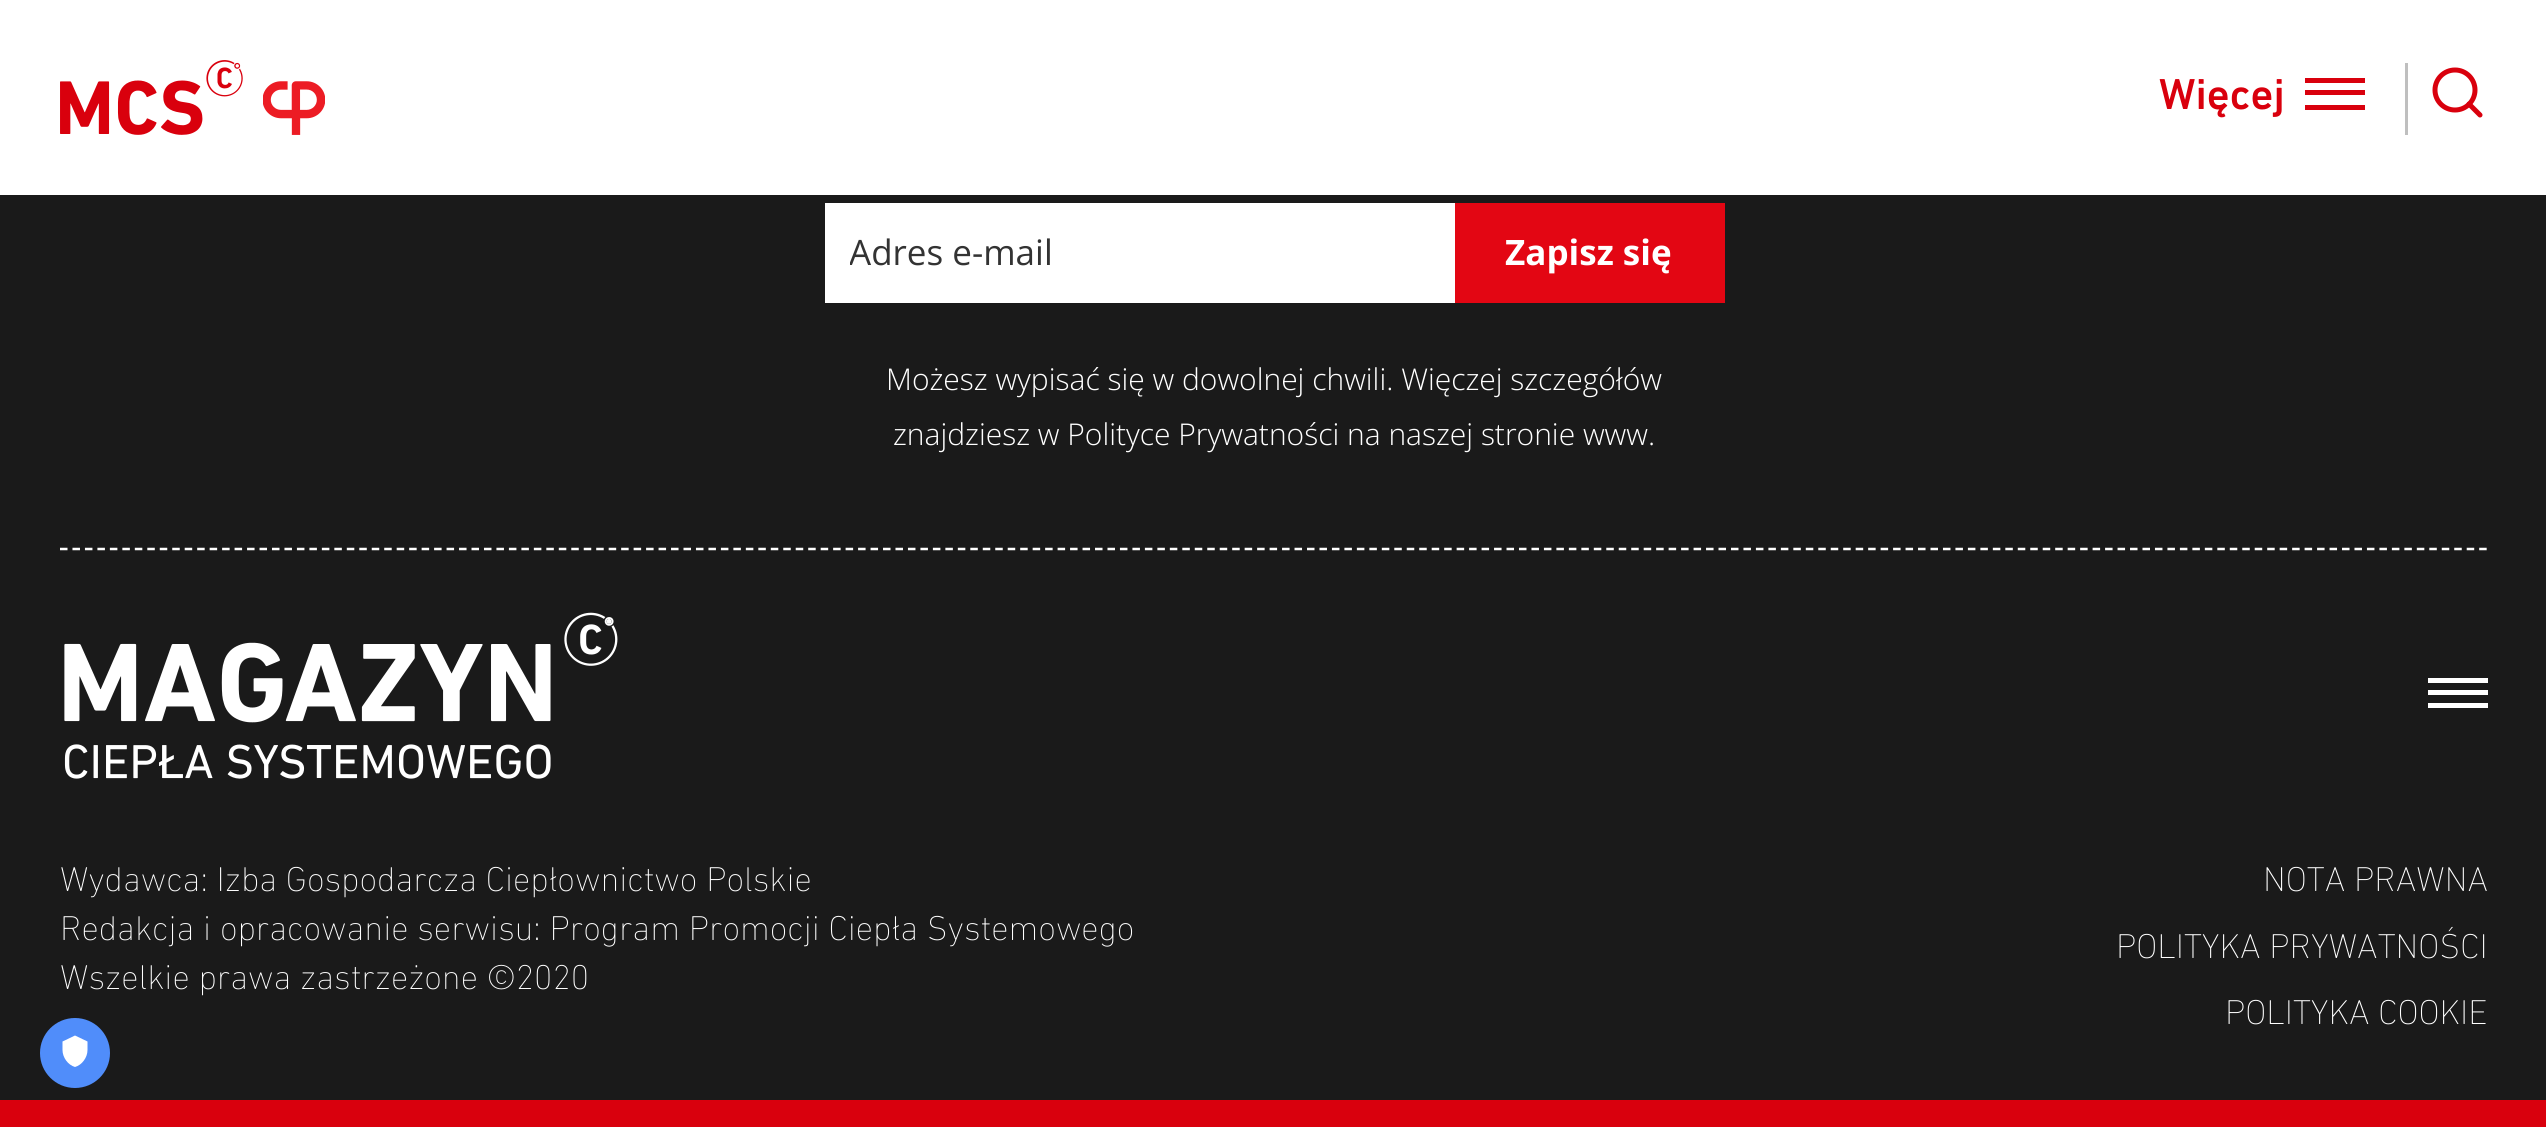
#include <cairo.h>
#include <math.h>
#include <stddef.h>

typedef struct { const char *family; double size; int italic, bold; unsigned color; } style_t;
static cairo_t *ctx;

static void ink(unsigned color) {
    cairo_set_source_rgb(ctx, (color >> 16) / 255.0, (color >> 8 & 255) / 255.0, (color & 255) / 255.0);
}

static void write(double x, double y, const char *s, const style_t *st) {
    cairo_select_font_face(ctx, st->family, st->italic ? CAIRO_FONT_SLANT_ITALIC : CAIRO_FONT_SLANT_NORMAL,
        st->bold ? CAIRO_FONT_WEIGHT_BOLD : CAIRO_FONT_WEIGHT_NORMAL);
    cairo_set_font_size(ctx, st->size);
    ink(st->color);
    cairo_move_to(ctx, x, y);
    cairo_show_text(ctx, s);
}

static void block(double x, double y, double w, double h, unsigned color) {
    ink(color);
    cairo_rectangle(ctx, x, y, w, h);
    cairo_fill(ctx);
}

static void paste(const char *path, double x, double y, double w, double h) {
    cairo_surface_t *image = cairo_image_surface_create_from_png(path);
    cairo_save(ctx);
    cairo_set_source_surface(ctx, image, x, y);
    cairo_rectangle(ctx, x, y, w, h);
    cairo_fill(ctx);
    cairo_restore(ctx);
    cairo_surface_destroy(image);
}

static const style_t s1 = {"DIN Next Medium", 44, 0, 0, 0xd9000d};
static const style_t s2 = {"Open Sans", 35, 0, 0, 0x333333};
static const style_t s3 = {"Open Sans", 35, 0, 1, 0xffffff};
static const style_t s4 = {"Open Sans Light", 30, 0, 0, 0xffffff};
static const style_t s5 = {"DIN Next ExtraLight", 35, 0, 0, 0xffffff};

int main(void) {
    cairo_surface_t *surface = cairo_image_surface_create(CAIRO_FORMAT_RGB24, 2546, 1127);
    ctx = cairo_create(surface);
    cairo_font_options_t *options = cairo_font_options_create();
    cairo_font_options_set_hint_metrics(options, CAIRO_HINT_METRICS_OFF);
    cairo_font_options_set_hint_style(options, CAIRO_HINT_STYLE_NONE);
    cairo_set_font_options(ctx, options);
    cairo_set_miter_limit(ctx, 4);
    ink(0x1a1a1a);
    cairo_paint(ctx);
    block(0, 0, 2546, 195, 0xffffff);
    paste("pic1.png", 60, 60, 183, 75);
    paste("pic2.png", 263, 81, 62, 54);
    write(2159, 109, "Więcej", &s1);
    block(2305, 78, 60, 5, 0xd9000d);
    block(2305, 90, 60, 5, 0xd9000d);
    block(2305, 105, 60, 5, 0xd9000d);
    block(2405, 63, 3, 72, 0xbfbfbf);
    cairo_new_path(ctx);
    cairo_move_to(ctx, 2480, 115);
    cairo_line_to(ctx, 2469, 104);
    ink(0xd9000d);
    cairo_set_line_width(ctx, 5);
    cairo_set_line_cap(ctx, CAIRO_LINE_CAP_ROUND);
    cairo_set_line_join(ctx, CAIRO_LINE_JOIN_ROUND);
    cairo_stroke(ctx);
    cairo_arc(ctx, 2455, 90, 20, 0, 2 * M_PI);
    cairo_set_line_cap(ctx, CAIRO_LINE_CAP_BUTT);
    cairo_set_line_join(ctx, CAIRO_LINE_JOIN_MITER);
    cairo_stroke(ctx);
    block(0, 1100, 2546, 27, 0xd9000d);
    block(825, 203, 630, 100, 0xffffff);
    cairo_save(ctx);
    cairo_rectangle(ctx, 850, 228, 580, 47);
    cairo_clip(ctx);
    write(849, 265, "Adres e-mail", &s2);
    cairo_restore(ctx);
    block(1455, 203, 270, 100, 0xe30613);
    write(1505, 265, "Zapisz się", &s3);
    write(886, 390, "Możesz wypisać się w dowolnej chwili. Więczej szczegółów", &s4);
    write(893, 445, "znajdziesz w Polityce Prywatności na naszej stronie www.", &s4);
    cairo_new_path(ctx);
    cairo_move_to(ctx, 60, 549);
    cairo_line_to(ctx, 2487.5, 549);
    cairo_set_line_width(ctx, 2.5);
    cairo_set_dash(ctx, (double[]){7.5, 4.97}, 2, 0);
    cairo_stroke(ctx);
    paste("pic3.png", 64, 612, 554, 167);
    block(2428, 678, 60, 5, 0xffffff);
    block(2428, 690, 60, 5, 0xffffff);
    block(2428, 703, 60, 5, 0xffffff);
    write(60, 891, "Wydawca: Izba Gospodarcza Ciepłownictwo Polskie", &s5);
    write(60, 940, "Redakcja i opracowanie serwisu: Program Promocji Ciepła Systemowego", &s5);
    write(60, 989, "Wszelkie prawa zastrzeżone ©2020", &s5);
    write(2263, 891, "NOTA PRAWNA", &s5);
    write(2116, 958, "POLITYKA PRYWATNOŚCI", &s5);
    write(2225, 1024, "POLITYKA COOKIE", &s5);
    ink(0x508dfa);
    cairo_new_path(ctx);
    cairo_arc(ctx, 75, 1053, 35, 0, 2 * M_PI);
    cairo_fill(ctx);
    ink(0xffffff);
    cairo_set_fill_rule(ctx, CAIRO_FILL_RULE_EVEN_ODD);
    cairo_new_path(ctx);
    cairo_move_to(ctx, 75, 1035.5);
    cairo_line_to(ctx, 62.5, 1041.5);
    cairo_line_to(ctx, 62.5, 1050);
    cairo_curve_to(ctx, 62.5, 1057.5, 68, 1065, 75, 1067);
    cairo_curve_to(ctx, 82, 1065, 87.5, 1057.5, 87.5, 1050);
    cairo_line_to(ctx, 87.5, 1041.5);
    cairo_close_path(ctx);
    cairo_fill(ctx);
    cairo_surface_write_to_png(surface, "screenshot.png");
    cairo_font_options_destroy(options);
    cairo_destroy(ctx);
    cairo_surface_destroy(surface);
    return 0;
}
